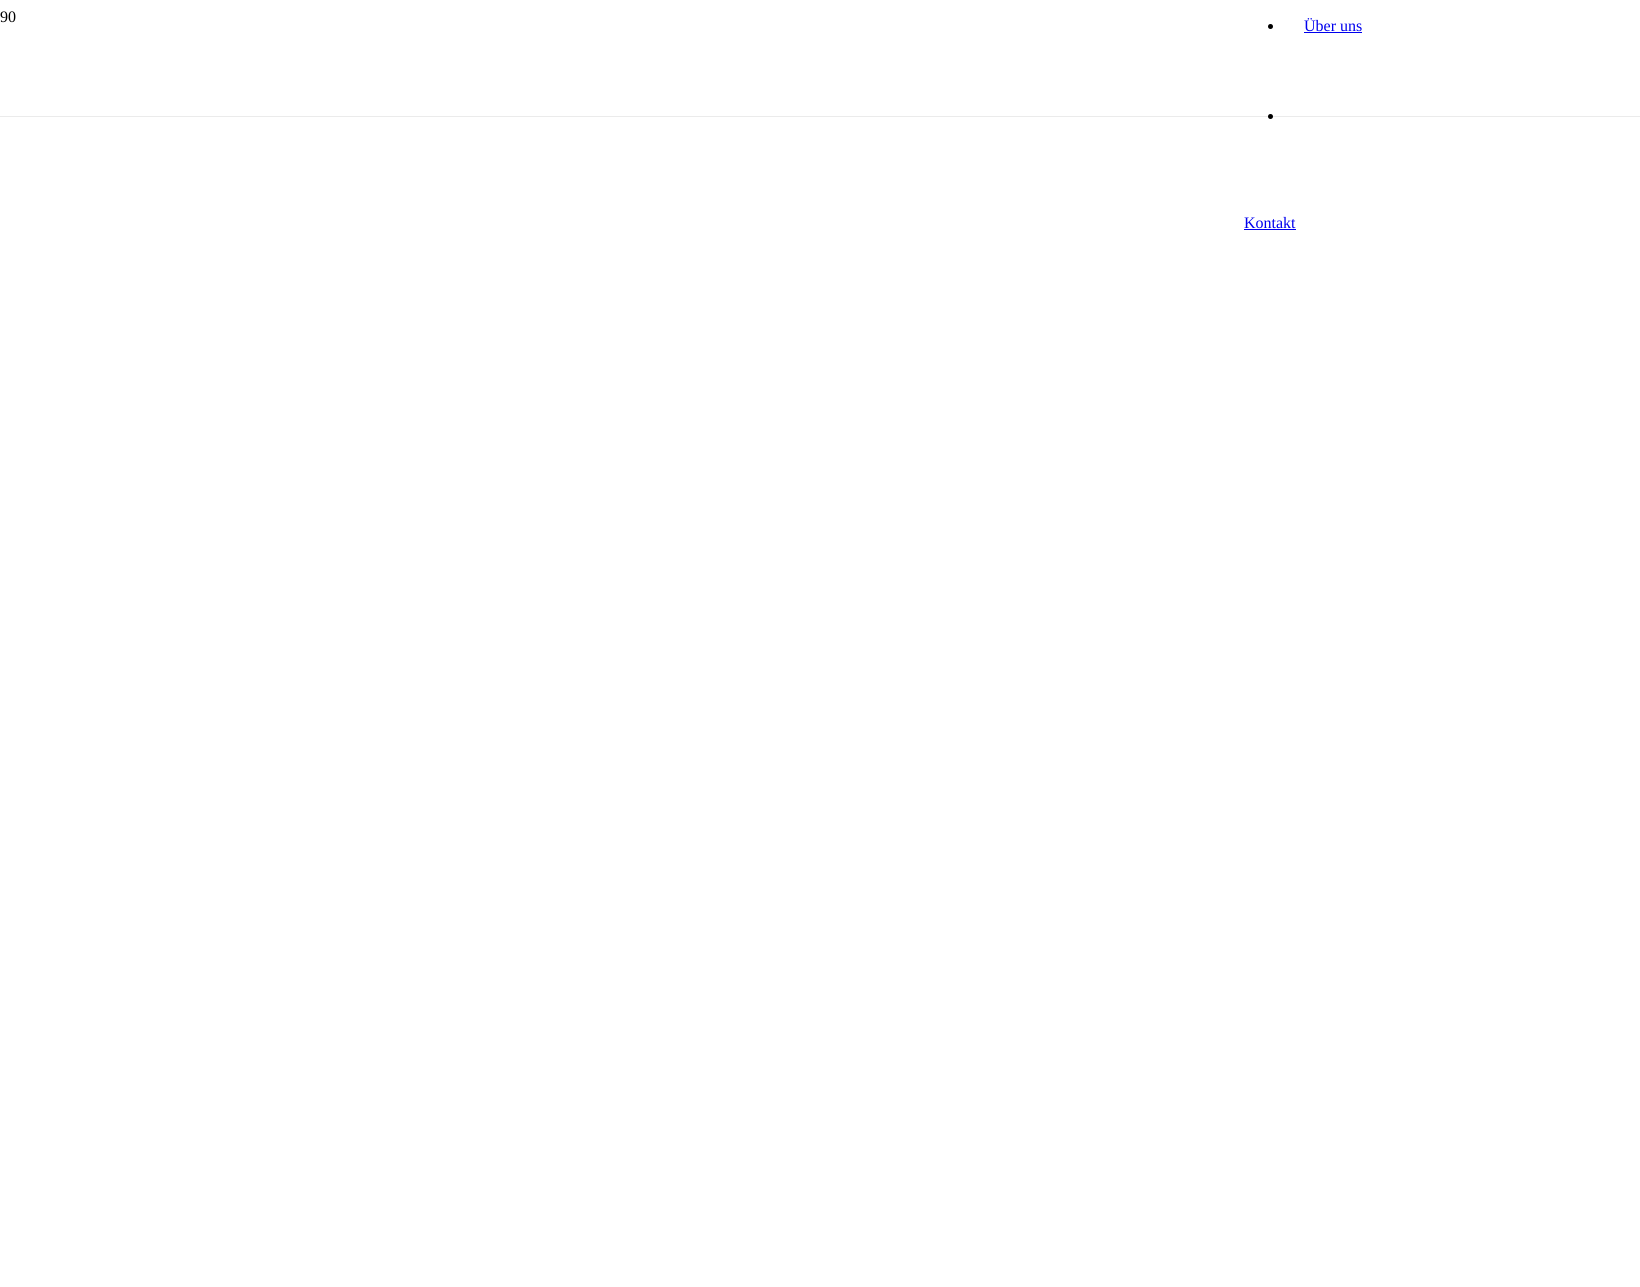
#include <cairo.h>
#include <math.h>
#include <stddef.h>

typedef struct { const char *family; double size; int italic, bold; unsigned color; } style_t;
static cairo_t *ctx;

static void ink(unsigned color) {
    cairo_set_source_rgb(ctx, (color >> 16) / 255.0, (color >> 8 & 255) / 255.0, (color & 255) / 255.0);
}

static void write(double x, double y, const char *s, const style_t *st) {
    cairo_select_font_face(ctx, st->family, st->italic ? CAIRO_FONT_SLANT_ITALIC : CAIRO_FONT_SLANT_NORMAL,
        st->bold ? CAIRO_FONT_WEIGHT_BOLD : CAIRO_FONT_WEIGHT_NORMAL);
    cairo_set_font_size(ctx, st->size);
    ink(st->color);
    cairo_move_to(ctx, x, y);
    cairo_show_text(ctx, s);
}

static void block(double x, double y, double w, double h, unsigned color) {
    ink(color);
    cairo_rectangle(ctx, x, y, w, h);
    cairo_fill(ctx);
}

static const style_t s1 = {"Liberation Serif", 16, 0, 0, 0x000000};
static const style_t s2 = {"Liberation Serif", 16, 0, 0, 0x0000ee};

int main(void) {
    cairo_surface_t *surface = cairo_image_surface_create(CAIRO_FORMAT_RGB24, 1640, 1287);
    ctx = cairo_create(surface);
    cairo_font_options_t *options = cairo_font_options_create();
    cairo_font_options_set_hint_metrics(options, CAIRO_HINT_METRICS_OFF);
    cairo_font_options_set_hint_style(options, CAIRO_HINT_STYLE_NONE);
    cairo_set_font_options(ctx, options);
    cairo_set_miter_limit(ctx, 4);
    ink(0xffffff);
    cairo_paint(ctx);
    write(0, 22, "90", &s1);
    block(0, 116, 1640, 1, 0xebebeb);
    ink(0x000000);
    cairo_new_path(ctx);
    cairo_arc(ctx, 1270.5, 26.5, 2.5, 0, 2 * M_PI);
    cairo_fill(ctx);
    write(1304, 31, "Über uns", &s2);
    block(1304, 32, 58, 1, 0x0000ee);
    ink(0x000000);
    cairo_new_path(ctx);
    cairo_arc(ctx, 1270.5, 116.5, 2.5, 0, 2 * M_PI);
    cairo_fill(ctx);
    write(1244, 228, "Kontakt", &s2);
    block(1244, 229, 52, 1, 0x0000ee);
    cairo_surface_write_to_png(surface, "screenshot.png");
    cairo_font_options_destroy(options);
    cairo_destroy(ctx);
    cairo_surface_destroy(surface);
    return 0;
}
